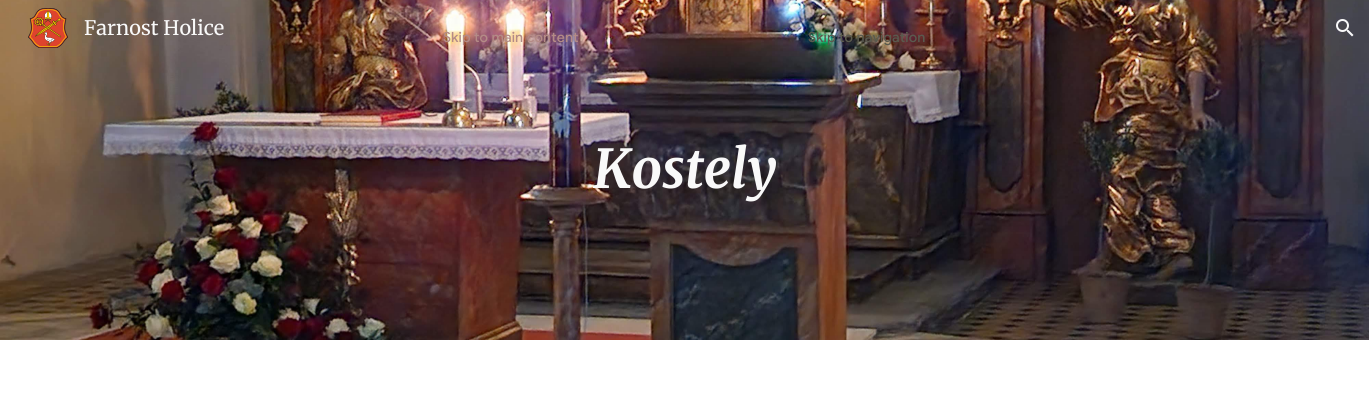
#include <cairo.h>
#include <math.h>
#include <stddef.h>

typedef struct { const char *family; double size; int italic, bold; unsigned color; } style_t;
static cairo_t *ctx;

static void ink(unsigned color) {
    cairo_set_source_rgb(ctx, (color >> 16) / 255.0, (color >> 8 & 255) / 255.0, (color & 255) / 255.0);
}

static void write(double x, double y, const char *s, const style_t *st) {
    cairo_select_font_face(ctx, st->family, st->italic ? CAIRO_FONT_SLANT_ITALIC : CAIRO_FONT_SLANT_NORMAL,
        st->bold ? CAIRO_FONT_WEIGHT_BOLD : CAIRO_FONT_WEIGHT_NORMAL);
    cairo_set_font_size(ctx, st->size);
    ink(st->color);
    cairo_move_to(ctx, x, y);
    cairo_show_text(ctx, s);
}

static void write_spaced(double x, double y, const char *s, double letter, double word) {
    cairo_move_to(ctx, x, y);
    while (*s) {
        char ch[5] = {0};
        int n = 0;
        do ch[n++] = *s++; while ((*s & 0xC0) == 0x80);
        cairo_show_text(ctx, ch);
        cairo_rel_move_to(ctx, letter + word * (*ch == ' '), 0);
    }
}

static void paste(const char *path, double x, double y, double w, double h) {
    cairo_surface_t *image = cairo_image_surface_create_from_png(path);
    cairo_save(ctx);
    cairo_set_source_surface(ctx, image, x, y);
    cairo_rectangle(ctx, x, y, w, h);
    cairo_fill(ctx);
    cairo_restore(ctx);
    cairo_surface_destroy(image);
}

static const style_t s1 = {"Merriweather", 20, 0, 0, 0xf9f9f9};
static const style_t s2 = {"Merriweather", 53.5, 1, 1, 0xf9f9f9};

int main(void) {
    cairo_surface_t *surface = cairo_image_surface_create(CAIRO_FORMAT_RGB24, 1369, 420);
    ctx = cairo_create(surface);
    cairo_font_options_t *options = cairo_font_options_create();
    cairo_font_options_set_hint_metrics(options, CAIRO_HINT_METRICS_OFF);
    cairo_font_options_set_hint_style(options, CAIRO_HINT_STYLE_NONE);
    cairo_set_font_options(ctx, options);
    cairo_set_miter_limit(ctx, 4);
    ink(0xffffff);
    cairo_paint(ctx);
    paste("pic3.png", 0, 0, 1369, 340);
    paste("pic1.png", 28, 8, 40, 40);
    write(84, 35, "Farnost Holice", &s1);
    paste("pic2.png", 1336, 19, 18, 18);
    write(593, 188, "Kostely", &s2);
    cairo_select_font_face(ctx, "Google Sans Medium", CAIRO_FONT_SLANT_NORMAL, CAIRO_FONT_WEIGHT_NORMAL);
    cairo_set_font_size(ctx, 14);
    ink(0xb48b86);
    write_spaced(443, 42, "Skip to main content", 0.1, 0);
    ink(0x5a5a4e);
    write_spaced(808, 42, "Skip to navigation", 0.1, 0);
    cairo_surface_write_to_png(surface, "screenshot.png");
    cairo_font_options_destroy(options);
    cairo_destroy(ctx);
    cairo_surface_destroy(surface);
    return 0;
}
